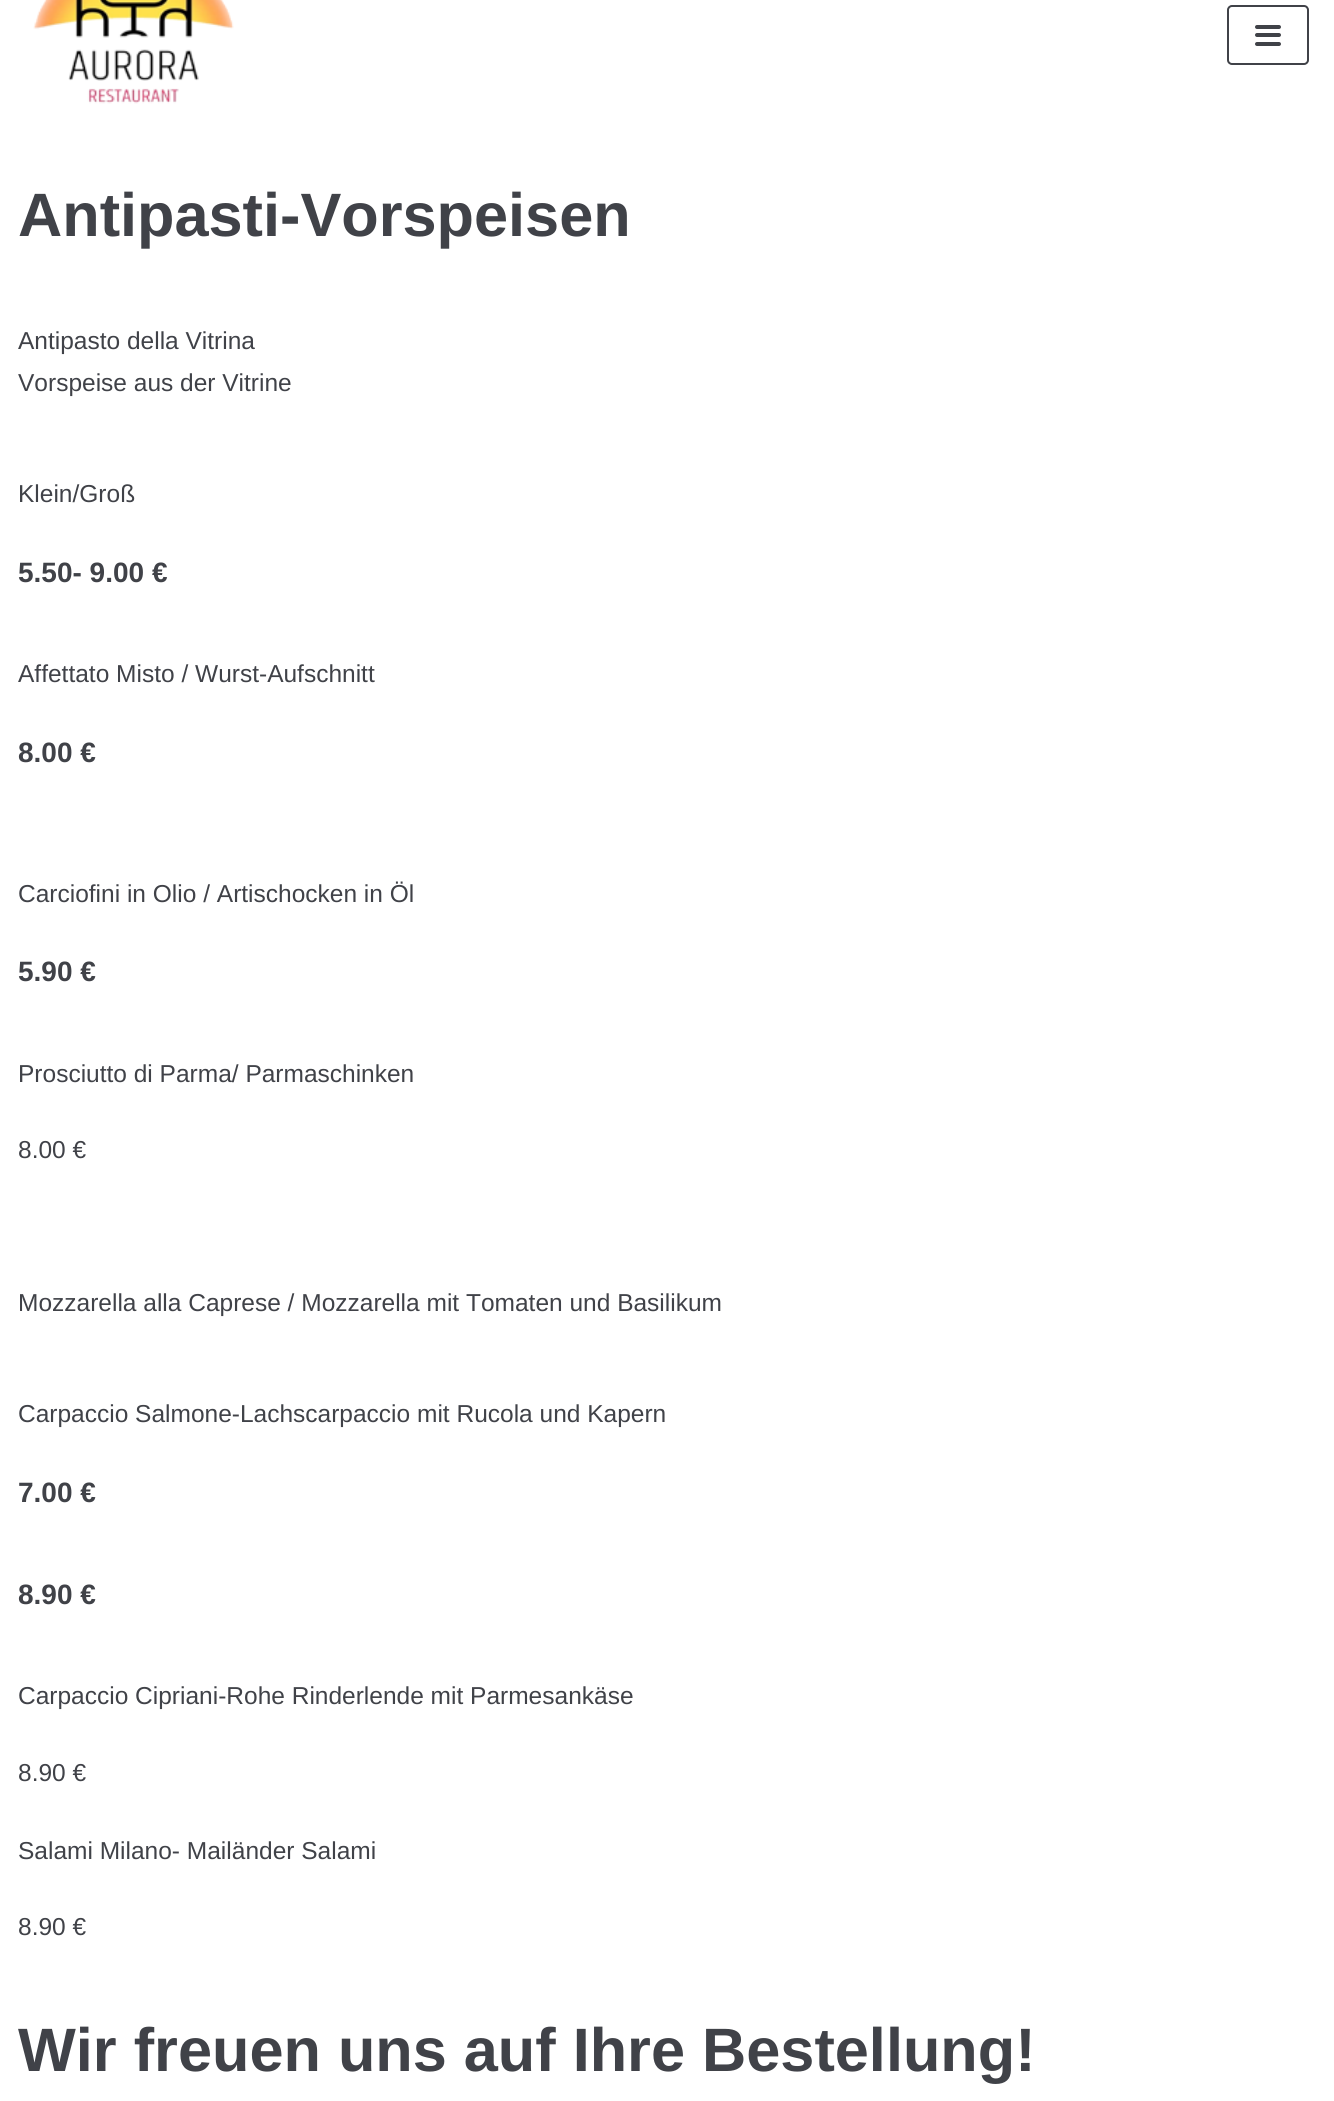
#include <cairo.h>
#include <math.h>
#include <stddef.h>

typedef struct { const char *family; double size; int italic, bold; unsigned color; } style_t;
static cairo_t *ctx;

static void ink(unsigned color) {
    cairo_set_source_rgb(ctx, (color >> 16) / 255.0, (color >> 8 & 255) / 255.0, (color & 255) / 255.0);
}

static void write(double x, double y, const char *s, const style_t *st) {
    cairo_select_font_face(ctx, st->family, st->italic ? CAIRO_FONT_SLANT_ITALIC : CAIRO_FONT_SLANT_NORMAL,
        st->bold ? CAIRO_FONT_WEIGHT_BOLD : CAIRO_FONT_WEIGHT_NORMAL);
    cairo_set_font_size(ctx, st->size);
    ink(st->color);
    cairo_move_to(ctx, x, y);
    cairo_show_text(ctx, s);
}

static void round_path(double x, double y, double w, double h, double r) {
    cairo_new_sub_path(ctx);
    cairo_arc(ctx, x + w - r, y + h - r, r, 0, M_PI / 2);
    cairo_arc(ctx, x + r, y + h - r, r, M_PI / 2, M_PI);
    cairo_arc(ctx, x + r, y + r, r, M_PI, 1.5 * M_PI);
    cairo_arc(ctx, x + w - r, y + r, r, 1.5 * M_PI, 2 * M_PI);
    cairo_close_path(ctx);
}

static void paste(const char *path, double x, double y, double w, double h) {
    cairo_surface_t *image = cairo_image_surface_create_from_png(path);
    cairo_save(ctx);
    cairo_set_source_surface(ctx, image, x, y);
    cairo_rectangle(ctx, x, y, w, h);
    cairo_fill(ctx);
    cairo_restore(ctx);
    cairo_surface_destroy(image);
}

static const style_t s1 = {"Liberation Sans", 61.25, 0, 1, 0x404248};
static const style_t s2 = {"Liberation Sans", 24.5, 0, 0, 0x404248};
static const style_t s3 = {"Liberation Sans", 28, 0, 1, 0x404248};

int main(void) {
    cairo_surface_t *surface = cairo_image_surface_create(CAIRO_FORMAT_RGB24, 1334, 2101);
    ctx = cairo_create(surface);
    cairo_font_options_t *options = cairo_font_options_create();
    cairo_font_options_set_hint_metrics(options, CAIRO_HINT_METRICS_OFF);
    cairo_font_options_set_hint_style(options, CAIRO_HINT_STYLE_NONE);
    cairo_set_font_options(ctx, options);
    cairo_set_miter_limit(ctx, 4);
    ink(0xffffff);
    cairo_paint(ctx);
    paste("pic1.png", 33, 0, 201, 104);
    round_path(1228, 6, 80, 58, 4);
    ink(0x404248);
    cairo_stroke(ctx);
    round_path(1255, 25, 26, 4, 2);
    cairo_fill(ctx);
    round_path(1255, 33, 26, 4, 2);
    cairo_fill(ctx);
    round_path(1255, 42, 26, 4, 2);
    cairo_fill(ctx);
    write(18, 236, "Antipasti-Vorspeisen", &s1);
    write(18, 349, "Antipasto della Vitrina", &s2);
    write(18, 391, "Vorspeise aus der Vitrine", &s2);
    write(18, 502, "Klein/Groß", &s2);
    write(18, 582, "5.50- 9.00 €", &s3);
    write(18, 682, "Affettato Misto / Wurst-Aufschnitt", &s2);
    write(18, 762, "8.00 €", &s3);
    write(18, 902, "Carciofini in Olio / Artischocken in Öl", &s2);
    write(18, 981, "5.90 €", &s3);
    write(18, 1082, "Prosciutto di Parma/ Parmaschinken", &s2);
    write(18, 1158, "8.00 €", &s2);
    write(18, 1311, "Mozzarella alla Caprese / Mozzarella mit Tomaten und Basilikum", &s2);
    write(18, 1422, "Carpaccio Salmone-Lachscarpaccio mit Rucola und Kapern", &s2);
    write(18, 1502, "7.00 €", &s3);
    write(18, 1604, "8.90 €", &s3);
    write(18, 1704, "Carpaccio Cipriani-Rohe Rinderlende mit Parmesankäse", &s2);
    write(18, 1781, "8.90 €", &s2);
    write(18, 1859, "Salami Milano- Mailänder Salami", &s2);
    write(18, 1935, "8.90 €", &s2);
    write(18, 2071, "Wir freuen uns auf Ihre Bestellung!", &s1);
    cairo_surface_write_to_png(surface, "screenshot.png");
    cairo_font_options_destroy(options);
    cairo_destroy(ctx);
    cairo_surface_destroy(surface);
    return 0;
}
